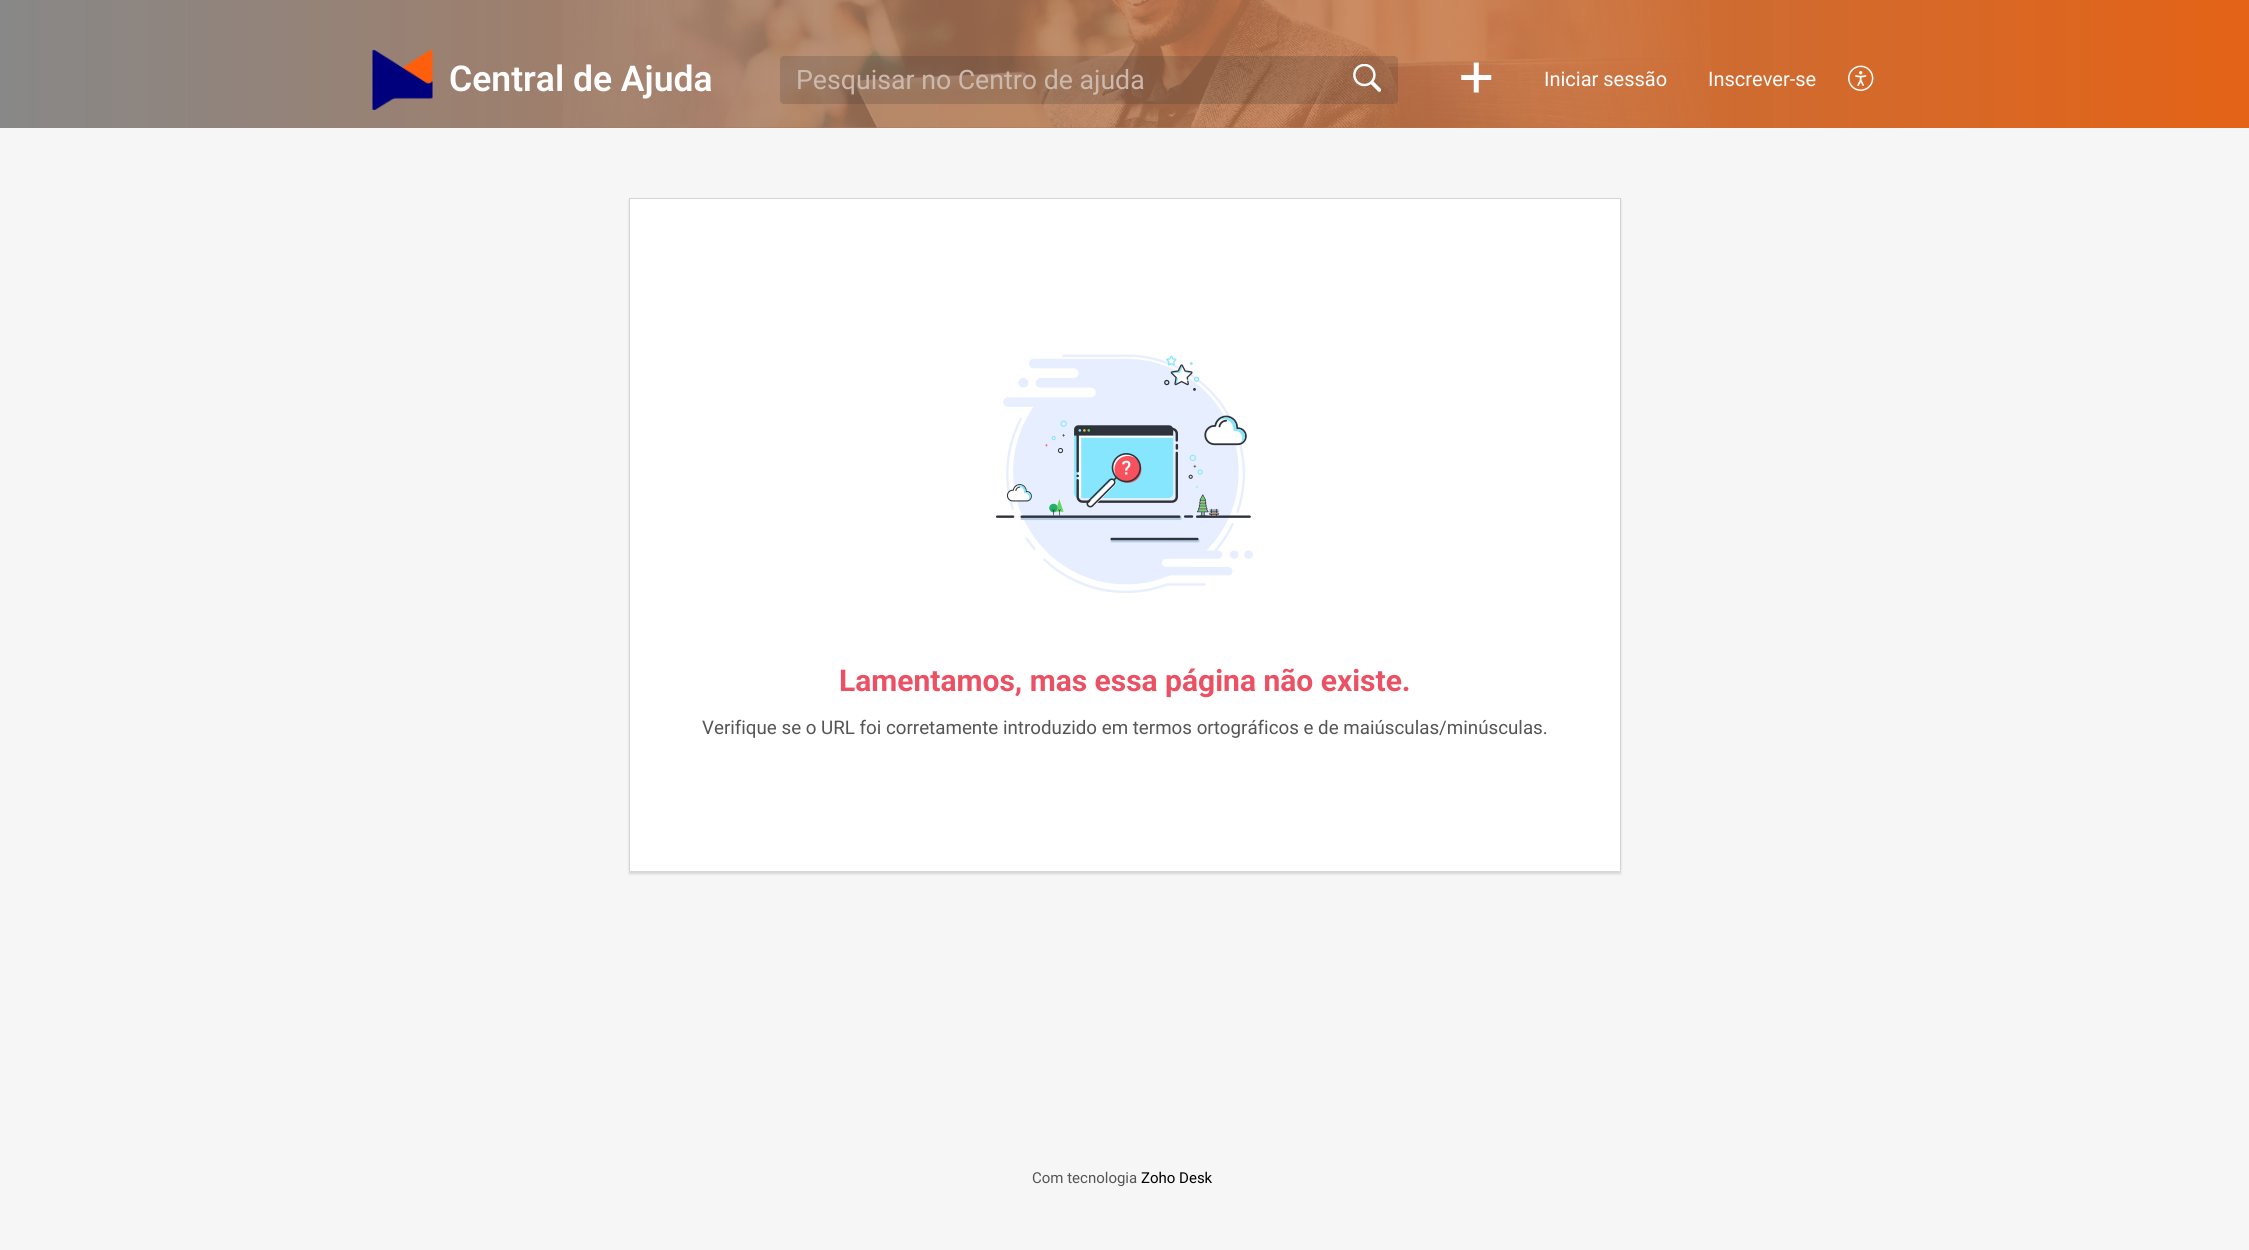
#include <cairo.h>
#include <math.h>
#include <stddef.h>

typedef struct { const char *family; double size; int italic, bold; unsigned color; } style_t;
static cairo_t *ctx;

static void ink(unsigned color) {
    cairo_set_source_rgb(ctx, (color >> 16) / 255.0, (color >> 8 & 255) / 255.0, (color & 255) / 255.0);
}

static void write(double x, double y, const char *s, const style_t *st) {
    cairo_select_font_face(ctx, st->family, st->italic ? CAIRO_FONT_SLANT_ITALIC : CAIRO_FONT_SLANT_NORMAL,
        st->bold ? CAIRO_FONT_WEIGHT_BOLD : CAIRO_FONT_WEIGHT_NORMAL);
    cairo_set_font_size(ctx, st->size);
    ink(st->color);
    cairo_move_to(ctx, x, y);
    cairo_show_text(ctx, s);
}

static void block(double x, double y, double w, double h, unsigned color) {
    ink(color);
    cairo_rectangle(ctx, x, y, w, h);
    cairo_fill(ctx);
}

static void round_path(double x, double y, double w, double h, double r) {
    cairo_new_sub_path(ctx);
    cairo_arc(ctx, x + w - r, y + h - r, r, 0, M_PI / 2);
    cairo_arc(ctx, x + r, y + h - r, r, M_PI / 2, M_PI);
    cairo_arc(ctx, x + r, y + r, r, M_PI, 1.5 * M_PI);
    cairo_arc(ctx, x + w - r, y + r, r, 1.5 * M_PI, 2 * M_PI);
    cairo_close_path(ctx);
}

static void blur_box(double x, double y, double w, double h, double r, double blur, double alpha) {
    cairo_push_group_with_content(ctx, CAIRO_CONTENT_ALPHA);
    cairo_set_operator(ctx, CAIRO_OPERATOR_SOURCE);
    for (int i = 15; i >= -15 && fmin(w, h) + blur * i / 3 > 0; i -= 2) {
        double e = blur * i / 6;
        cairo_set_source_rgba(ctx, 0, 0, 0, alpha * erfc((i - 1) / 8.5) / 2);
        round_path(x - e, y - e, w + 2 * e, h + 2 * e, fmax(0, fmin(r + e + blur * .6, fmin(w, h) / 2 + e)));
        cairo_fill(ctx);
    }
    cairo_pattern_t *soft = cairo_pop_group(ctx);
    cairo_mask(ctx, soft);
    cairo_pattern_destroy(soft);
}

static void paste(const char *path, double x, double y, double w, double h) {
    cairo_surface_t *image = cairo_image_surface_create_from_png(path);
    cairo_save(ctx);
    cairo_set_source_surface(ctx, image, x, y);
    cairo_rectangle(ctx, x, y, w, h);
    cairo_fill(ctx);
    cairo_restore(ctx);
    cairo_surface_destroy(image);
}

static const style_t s1 = {"Roboto SemiBold", 35.5, 0, 0, 0xfefefe};
static const style_t s2 = {"Roboto", 26.7, 0, 0, 0xccb9ad};
static const style_t s3 = {"Roboto", 20, 0, 0, 0xfefefe};
static const style_t s4 = {"Roboto", 30, 0, 1, 0xec5063};
static const style_t s5 = {"Roboto", 18.75, 0, 0, 0x555555};
static const style_t s6 = {"Roboto", 15, 0, 0, 0x555555};
static const style_t s7 = {"Roboto", 15, 0, 0, 0x000000};

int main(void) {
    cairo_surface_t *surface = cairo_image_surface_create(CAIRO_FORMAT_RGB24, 2249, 1250);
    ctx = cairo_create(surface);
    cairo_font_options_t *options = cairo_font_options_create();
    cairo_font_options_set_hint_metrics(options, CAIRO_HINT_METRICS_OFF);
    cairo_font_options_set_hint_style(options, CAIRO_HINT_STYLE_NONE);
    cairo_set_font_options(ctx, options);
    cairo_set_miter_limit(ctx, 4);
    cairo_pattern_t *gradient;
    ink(0xf6f6f6);
    cairo_paint(ctx);
    gradient = cairo_pattern_create_linear(0, 64, 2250, 64);
    cairo_pattern_add_color_stop_rgba(gradient, 0, 0.533, 0.533, 0.533, 1);
    cairo_pattern_add_color_stop_rgba(gradient, 1, 0.894, 0.388, 0.09, 1);
    cairo_set_source(ctx, gradient);
    cairo_pattern_destroy(gradient);
    cairo_rectangle(ctx, 0, 0, 2249, 128);
    cairo_fill(ctx);
    paste("pic1.png", 563, 0, 1148, 128);
    paste("pic2.png", 372, 50, 61, 60);
    write(449, 91, "Central de Ajuda", &s1);
    cairo_set_source_rgba(ctx, 0.2, 0.2, 0.2, 0.2);
    round_path(780, 56, 618, 48, 4);
    cairo_fill(ctx);
    write(796, 89, "Pesquisar no Centro de ajuda", &s2);
    paste("pic3.png", 1353, 64, 28, 28);
    paste("pic4.png", 1461, 62, 31, 31);
    write(1544, 86, "Iniciar sessão", &s3);
    write(1708, 86, "Inscrever-se", &s3);
    paste("pic5.png", 1848, 65, 26, 26);
    ink(0x202320);
    blur_box(629, 200, 992, 674, 0, 1, 0.15);
    block(630, 199, 990, 672, 0xffffff);
    block(629, 198, 992, 1, 0xd2d3d2);
    block(1620, 198, 1, 673, 0xd2d3d2);
    block(629, 198, 1, 673, 0xd2d3d2);
    paste("pic6.png", 996, 354, 257, 239);
    write(839, 691, "Lamentamos, mas essa página não existe.", &s4);
    write(702, 734, "Verifique se o URL foi corretamente introduzido em termos ortográficos e de maiúsculas/minúsculas.", &s5);
    write(1032, 1183, "Com tecnologia", &s6);
    write(1141, 1183, "Zoho Desk", &s7);
    cairo_surface_write_to_png(surface, "screenshot.png");
    cairo_font_options_destroy(options);
    cairo_destroy(ctx);
    cairo_surface_destroy(surface);
    return 0;
}
